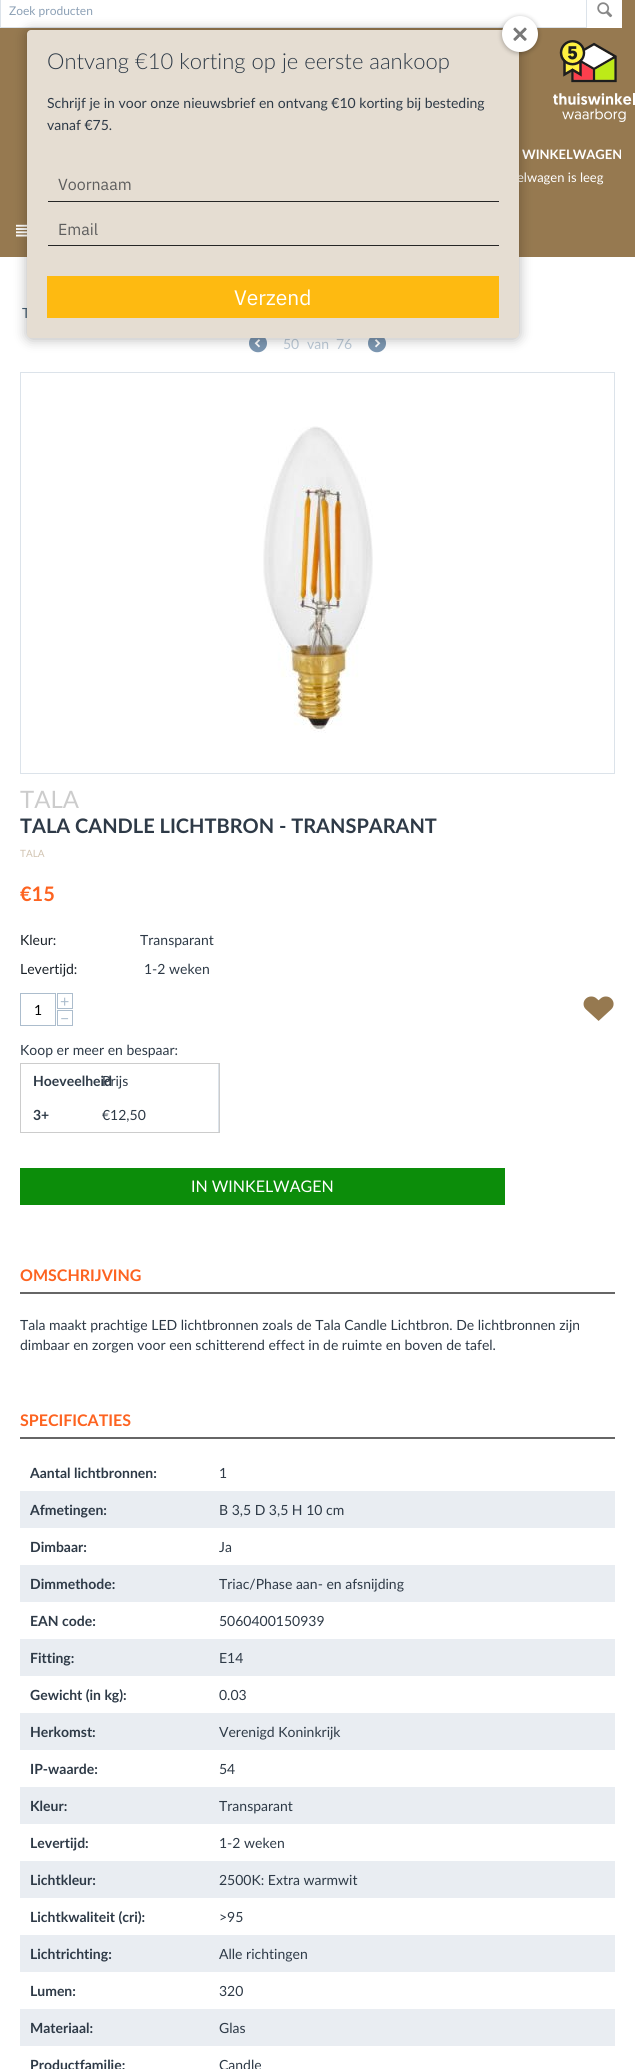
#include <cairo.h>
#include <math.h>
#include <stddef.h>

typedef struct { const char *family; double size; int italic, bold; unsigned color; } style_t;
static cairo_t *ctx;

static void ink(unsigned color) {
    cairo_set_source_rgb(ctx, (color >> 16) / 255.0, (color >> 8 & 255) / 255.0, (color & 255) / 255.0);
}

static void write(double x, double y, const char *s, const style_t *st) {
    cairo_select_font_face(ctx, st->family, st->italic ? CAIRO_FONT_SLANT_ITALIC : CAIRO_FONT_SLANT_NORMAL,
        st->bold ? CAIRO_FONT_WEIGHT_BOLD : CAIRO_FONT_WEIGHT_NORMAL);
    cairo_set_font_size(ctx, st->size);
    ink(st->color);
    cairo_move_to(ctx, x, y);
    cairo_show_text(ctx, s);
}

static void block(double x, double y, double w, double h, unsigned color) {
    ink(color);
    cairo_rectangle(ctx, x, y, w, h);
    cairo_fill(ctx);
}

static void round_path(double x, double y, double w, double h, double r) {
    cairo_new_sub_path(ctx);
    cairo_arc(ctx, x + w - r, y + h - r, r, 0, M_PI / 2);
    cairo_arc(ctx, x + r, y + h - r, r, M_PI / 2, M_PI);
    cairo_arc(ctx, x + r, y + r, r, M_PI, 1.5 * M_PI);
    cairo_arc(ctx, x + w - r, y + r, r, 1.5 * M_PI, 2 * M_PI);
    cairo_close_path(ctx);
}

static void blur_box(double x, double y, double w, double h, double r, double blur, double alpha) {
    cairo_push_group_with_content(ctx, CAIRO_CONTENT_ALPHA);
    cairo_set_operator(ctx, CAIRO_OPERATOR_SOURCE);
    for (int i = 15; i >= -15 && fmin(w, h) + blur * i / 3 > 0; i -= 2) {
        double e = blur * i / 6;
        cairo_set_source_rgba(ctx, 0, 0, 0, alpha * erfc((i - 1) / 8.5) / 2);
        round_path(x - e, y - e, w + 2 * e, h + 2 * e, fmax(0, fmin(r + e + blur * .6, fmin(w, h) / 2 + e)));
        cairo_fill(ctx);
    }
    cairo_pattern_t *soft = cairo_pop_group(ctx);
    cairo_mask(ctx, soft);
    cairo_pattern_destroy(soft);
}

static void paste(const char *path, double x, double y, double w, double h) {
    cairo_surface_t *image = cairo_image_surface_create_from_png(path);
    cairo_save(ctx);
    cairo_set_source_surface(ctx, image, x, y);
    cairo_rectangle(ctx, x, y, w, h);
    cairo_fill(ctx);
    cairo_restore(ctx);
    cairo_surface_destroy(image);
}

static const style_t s1 = {"Lato", 12, 0, 0, 0x8ca0b5};
static const style_t s2 = {"Lato", 13, 0, 1, 0xffffff};
static const style_t s3 = {"Lato", 13, 0, 0, 0xffffff};
static const style_t s4 = {"Lato", 14, 0, 0, 0x465f73};
static const style_t s5 = {"Lato", 14, 0, 0, 0xbccad7};
static const style_t s6 = {"Lato", 24, 0, 0, 0xcccccc};
static const style_t s7 = {"Lato", 20, 0, 1, 0x2e3a47};
static const style_t s8 = {"Lato", 10, 0, 0, 0xd1c4b2};
static const style_t s9 = {"Lato", 20, 0, 1, 0xfd6320};
static const style_t s10 = {"Lato", 14, 0, 0, 0x1a2128};
static const style_t s11 = {"Lato", 14, 0, 0, 0x2e3a47};
static const style_t s12 = {"Lato", 16, 0, 0, 0xacbdcd};
static const style_t s13 = {"Lato", 14, 0, 0, 0x000000};
static const style_t s14 = {"Lato", 14, 0, 1, 0x2e3a47};
static const style_t s15 = {"Lato", 16, 0, 0, 0xffffff};
static const style_t s16 = {"Lato", 16, 0, 1, 0xfd6320};
static const style_t s17 = {"Lato Light", 22, 0, 0, 0x2e3a47};
static const style_t s18 = {"IBM Plex Sans", 16, 0, 0, 0x5d5d5d};
static const style_t s19 = {"IBM Plex Sans", 21, 0, 0, 0xffffff};

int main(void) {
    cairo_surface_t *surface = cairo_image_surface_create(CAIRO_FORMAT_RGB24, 635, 2069);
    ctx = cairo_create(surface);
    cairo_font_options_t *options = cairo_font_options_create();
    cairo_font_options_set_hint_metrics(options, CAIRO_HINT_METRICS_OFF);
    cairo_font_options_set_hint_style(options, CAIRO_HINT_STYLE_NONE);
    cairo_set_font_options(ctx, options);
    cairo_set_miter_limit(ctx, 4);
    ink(0xffffff);
    cairo_paint(ctx);
    block(0, 0, 635, 257, 0x967950);
    ink(0xffffff);
    cairo_rectangle(ctx, 0.5, -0.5, 586, 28);
    cairo_fill_preserve(ctx);
    ink(0xdce3ea);
    cairo_set_line_width(ctx, 1);
    cairo_stroke(ctx);
    write(9, 15, "Zoek producten", &s1);
    block(587, 0, 35, 28, 0xffffff);
    paste("pic1.png", 597, 2, 16, 16);
    paste("pic2.png", 553, 40, 82, 82);
    write(522, 159, "WINKELWAGEN", &s2);
    write(517, 182, "elwagen is leeg", &s3);
    paste("pic3.png", 16, 224, 11, 13);
    write(22, 318, "T", &s4);
    paste("pic4.png", 249, 338, 18, 15);
    write(283, 349, "50", &s5);
    write(307, 349, "van", &s5);
    write(336, 349, "76", &s5);
    paste("pic5.png", 368, 338, 18, 15);
    cairo_rectangle(ctx, 20.5, 372.5, 594, 401);
    ink(0xdce3ea);
    cairo_stroke(ctx);
    paste("pic6.png", 263, 426, 110, 307);
    write(20, 808, "TALA", &s6);
    write(20, 833, "TALA CANDLE LICHTBRON - TRANSPARANT", &s7);
    write(20, 857, "TALA", &s8);
    write(20, 901, "€15", &s9);
    write(20, 945, "Kleur:", &s10);
    write(140, 945, "Transparant", &s11);
    write(20, 974, "Levertijd:", &s10);
    write(144, 974, "1-2 weken", &s11);
    cairo_rectangle(ctx, 57.5, 993.5, 15, 15);
    ink(0xacbdcd);
    cairo_stroke(ctx);
    write(60, 1007, "+", &s12);
    cairo_rectangle(ctx, 20.5, 993.5, 35, 32);
    cairo_stroke(ctx);
    write(34, 1015, "1", &s13);
    cairo_rectangle(ctx, 57.5, 1010.5, 15, 15);
    ink(0xacbdcd);
    cairo_stroke(ctx);
    write(60, 1024, "−", &s12);
    write(20, 1055, "Koop er meer en bespaar:", &s11);
    cairo_rectangle(ctx, 20.5, 1063.5, 199, 69);
    ink(0xcccccc);
    cairo_stroke(ctx);
    block(218, 1064, 1, 68, 0xdce3ea);
    write(33, 1086, "Hoeveelheid", &s14);
    write(102, 1086, "Prijs", &s11);
    write(33, 1120, "3+", &s14);
    write(102, 1120, "€12,50", &s11);
    paste("pic7.png", 583, 996, 31, 25);
    block(20, 1168, 485, 37, 0x0c8d0a);
    write(191, 1192, "IN WINKELWAGEN", &s15);
    block(20, 1292, 595, 2, 0x666666);
    write(20, 1281, "OMSCHRIJVING", &s16);
    write(20, 1330, "Tala maakt prachtige LED lichtbronnen zoals de Tala Candle Lichtbron. De lichtbronnen zijn", &s11);
    write(20, 1350, "dimbaar en zorgen voor een schitterend effect in de ruimte en boven de tafel.", &s11);
    block(20, 1437, 595, 2, 0x666666);
    write(20, 1426, "SPECIFICATIES", &s16);
    write(30, 1478, "Aantal lichtbronnen:", &s14);
    write(219, 1478, "1", &s11);
    block(20, 1491, 595, 37, 0xe9edf2);
    write(30, 1515, "Afmetingen:", &s14);
    write(219, 1515, "B 3,5 D 3,5 H 10 cm", &s11);
    write(30, 1552, "Dimbaar:", &s14);
    write(219, 1552, "Ja", &s11);
    block(20, 1565, 595, 37, 0xe9edf2);
    write(30, 1589, "Dimmethode:", &s14);
    write(219, 1589, "Triac/Phase aan- en afsnijding", &s11);
    write(30, 1626, "EAN code:", &s14);
    write(219, 1626, "5060400150939", &s11);
    block(20, 1639, 595, 37, 0xe9edf2);
    write(30, 1663, "Fitting:", &s14);
    write(219, 1663, "E14", &s11);
    write(30, 1700, "Gewicht (in kg):", &s14);
    write(219, 1700, "0.03", &s11);
    block(20, 1713, 595, 37, 0xe9edf2);
    write(30, 1737, "Herkomst:", &s14);
    write(219, 1737, "Verenigd Koninkrijk", &s11);
    write(30, 1774, "IP-waarde:", &s14);
    write(219, 1774, "54", &s11);
    block(20, 1787, 595, 37, 0xe9edf2);
    write(30, 1811, "Kleur:", &s14);
    write(219, 1811, "Transparant", &s11);
    write(30, 1848, "Levertijd:", &s14);
    write(219, 1848, "1-2 weken", &s11);
    block(20, 1861, 595, 37, 0xe9edf2);
    write(30, 1885, "Lichtkleur:", &s14);
    write(219, 1885, "2500K: Extra warmwit", &s11);
    write(30, 1922, "Lichtkwaliteit (cri):", &s14);
    write(219, 1922, ">95", &s11);
    block(20, 1935, 595, 37, 0xe9edf2);
    write(30, 1959, "Lichtrichting:", &s14);
    write(219, 1959, "Alle richtingen", &s11);
    write(30, 1996, "Lumen:", &s14);
    write(219, 1996, "320", &s11);
    block(20, 2009, 595, 37, 0xe9edf2);
    write(30, 2033, "Materiaal:", &s14);
    write(219, 2033, "Glas", &s11);
    write(30, 2070, "Productfamilie:", &s14);
    write(219, 2070, "Candle", &s11);
    ink(0x000000);
    blur_box(27, 31, 492, 308, 4, 6.5, 0.3);
    ink(0xe5ddd2);
    round_path(27, 30, 492, 308, 4);
    cairo_fill(ctx);
    ink(0x000000);
    blur_box(502, 17, 36, 36, 18, 2.5, 0.3);
    ink(0xffffff);
    cairo_arc(ctx, 520, 34, 18, 0, 2 * M_PI);
    cairo_fill(ctx);
    paste("pic8.png", 513, 27, 14, 14);
    write(47, 69, "Ontvang €10 korting op je eerste aankoop", &s17);
    write(47, 108, "Schrijf je in voor onze nieuwsbrief en ontvang €10 korting bij besteding", &s11);
    write(47, 130, "vanaf €75.", &s11);
    block(47, 201, 452, 1, 0x262626);
    block(47, 201, 1, 1, 0xe5ddd2);
    write(58, 190, "Voornaam", &s18);
    block(47, 245, 452, 1, 0x262626);
    block(47, 245, 1, 1, 0xe5ddd2);
    write(58, 235, "Email", &s18);
    block(47, 276, 452, 42, 0xfeba11);
    write(234, 305, "Verzend", &s19);
    cairo_surface_write_to_png(surface, "screenshot.png");
    cairo_font_options_destroy(options);
    cairo_destroy(ctx);
    cairo_surface_destroy(surface);
    return 0;
}
